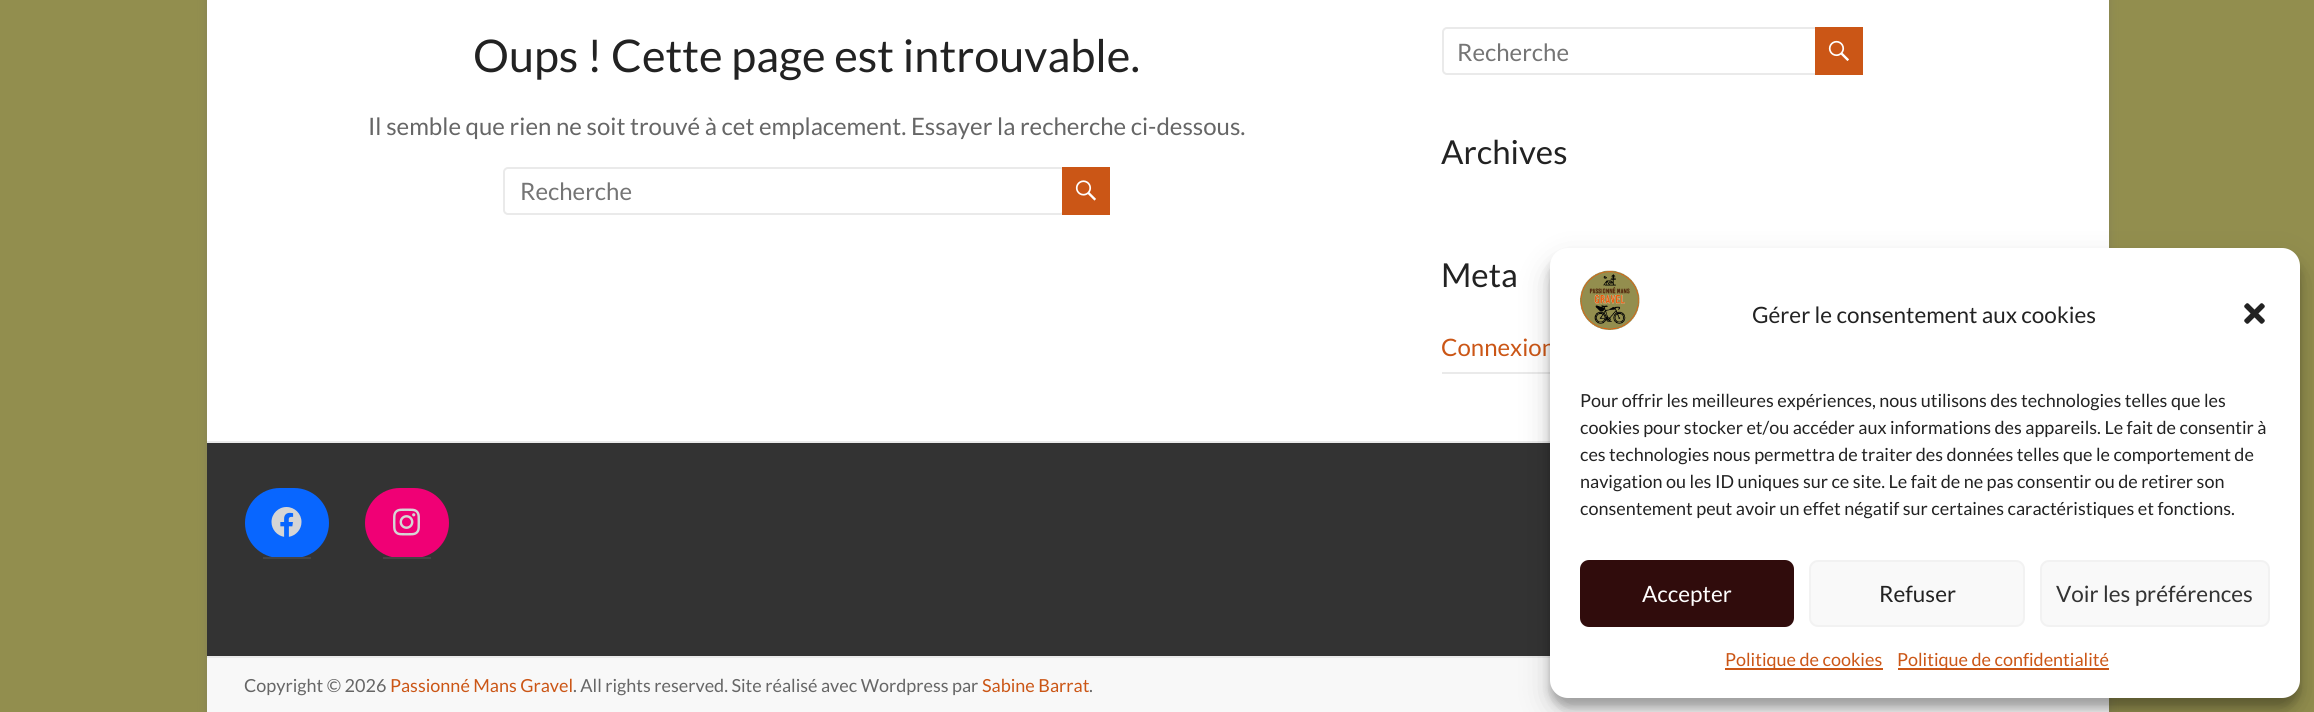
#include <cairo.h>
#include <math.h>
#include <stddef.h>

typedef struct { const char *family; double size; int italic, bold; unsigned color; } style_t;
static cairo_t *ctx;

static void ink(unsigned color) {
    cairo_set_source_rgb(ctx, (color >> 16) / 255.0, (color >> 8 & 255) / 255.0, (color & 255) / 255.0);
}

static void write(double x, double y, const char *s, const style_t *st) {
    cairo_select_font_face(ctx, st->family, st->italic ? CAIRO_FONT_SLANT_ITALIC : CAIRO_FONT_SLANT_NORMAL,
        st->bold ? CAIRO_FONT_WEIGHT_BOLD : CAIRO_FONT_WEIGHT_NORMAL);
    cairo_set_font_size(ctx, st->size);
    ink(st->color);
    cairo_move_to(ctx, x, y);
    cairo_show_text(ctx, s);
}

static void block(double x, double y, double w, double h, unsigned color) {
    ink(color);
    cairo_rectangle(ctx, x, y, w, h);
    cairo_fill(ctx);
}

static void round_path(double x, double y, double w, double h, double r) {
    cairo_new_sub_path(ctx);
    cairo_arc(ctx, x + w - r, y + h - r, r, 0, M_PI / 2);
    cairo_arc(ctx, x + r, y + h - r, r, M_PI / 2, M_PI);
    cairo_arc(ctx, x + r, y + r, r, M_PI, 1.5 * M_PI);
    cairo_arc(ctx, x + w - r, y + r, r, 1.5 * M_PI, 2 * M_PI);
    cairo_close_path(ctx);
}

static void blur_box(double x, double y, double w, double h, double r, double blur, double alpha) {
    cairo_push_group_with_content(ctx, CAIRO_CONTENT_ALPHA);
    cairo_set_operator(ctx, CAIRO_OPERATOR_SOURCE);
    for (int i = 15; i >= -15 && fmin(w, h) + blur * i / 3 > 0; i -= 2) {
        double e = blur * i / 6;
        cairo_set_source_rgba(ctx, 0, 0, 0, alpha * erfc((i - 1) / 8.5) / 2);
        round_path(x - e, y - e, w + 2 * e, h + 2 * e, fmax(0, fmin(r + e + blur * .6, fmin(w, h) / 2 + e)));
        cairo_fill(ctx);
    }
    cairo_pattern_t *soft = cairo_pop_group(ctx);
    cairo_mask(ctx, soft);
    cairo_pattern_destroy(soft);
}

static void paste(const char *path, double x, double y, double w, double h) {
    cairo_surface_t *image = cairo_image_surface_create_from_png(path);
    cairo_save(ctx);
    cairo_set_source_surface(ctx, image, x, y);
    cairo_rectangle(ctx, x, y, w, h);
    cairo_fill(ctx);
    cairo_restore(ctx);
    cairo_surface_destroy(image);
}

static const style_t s1 = {"Lato", 45, 0, 0, 0x222222};
static const style_t s2 = {"Lato", 24, 0, 0, 0x666666};
static const style_t s3 = {"Lato", 24, 0, 0, 0x757575};
static const style_t s4 = {"Lato", 33, 0, 0, 0x222222};
static const style_t s5 = {"Lato", 24, 0, 0, 0xcb5616};
static const style_t s6 = {"Lato", 18, 0, 0, 0x666666};
static const style_t s7 = {"Lato", 18, 0, 0, 0xcb5616};
static const style_t s8 = {"Lato", 22.5, 0, 0, 0x222222};
static const style_t s9 = {"Lato", 18, 0, 0, 0x222222};
static const style_t s10 = {"Lato", 22.5, 0, 0, 0xffffff};
static const style_t s11 = {"Lato", 22.5, 0, 0, 0x333333};

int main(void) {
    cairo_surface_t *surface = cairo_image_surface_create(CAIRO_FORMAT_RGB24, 2314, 712);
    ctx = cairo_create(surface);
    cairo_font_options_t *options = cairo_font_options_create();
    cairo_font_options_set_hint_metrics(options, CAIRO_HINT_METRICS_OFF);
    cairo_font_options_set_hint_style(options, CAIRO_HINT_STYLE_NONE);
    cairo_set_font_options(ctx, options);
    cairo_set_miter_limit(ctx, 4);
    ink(0x928e4e);
    cairo_paint(ctx);
    ink(0x646464);
    blur_box(207, -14, 1902, 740, 0, 4.5, 0.3);
    block(207, 0, 1902, 441, 0xffffff);
    write(473, 72, "Oups ! Cette page est introuvable.", &s1);
    write(368, 135, "Il semble que rien ne soit trouvé à cet emplacement. Essayer la recherche ci-dessous.", &s2);
    round_path(504, 168, 560, 46, 4);
    ink(0xeaeaea);
    cairo_stroke(ctx);
    write(520, 200, "Recherche", &s3);
    block(1062, 167, 48, 48, 0xcb5616);
    paste("pic1.png", 1075, 180, 21, 21);
    round_path(1443, 28, 376, 46, 4);
    ink(0xeaeaea);
    cairo_stroke(ctx);
    write(1457, 61, "Recherche", &s3);
    block(1815, 27, 48, 48, 0xcb5616);
    paste("pic2.png", 1828, 40, 21, 21);
    write(1441, 164, "Archives", &s4);
    write(1441, 287, "Meta", &s4);
    block(1442, 372, 108, 2, 0xeaeaea);
    write(1441, 356, "Connexion", &s5);
    block(207, 443, 1343, 213, 0x333333);
    block(207, 441, 1343, 2, 0xeaeaea);
    ink(0x0866ff);
    round_path(245, 488, 84, 70, 35);
    cairo_fill(ctx);
    block(263, 557, 48, 2, 0x444444);
    paste("pic3.png", 271, 507, 31, 30);
    ink(0xf00075);
    round_path(365, 488, 84, 70, 35);
    cairo_fill(ctx);
    block(383, 557, 48, 2, 0x444444);
    paste("pic4.png", 393, 508, 27, 28);
    block(207, 658, 1902, 54, 0xf8f8f8);
    block(207, 656, 1343, 2, 0xeaeaea);
    write(244, 692, "Copyright © 2026", &s6);
    write(390, 692, "Passionné Mans Gravel", &s7);
    write(573, 692, ". All rights reserved. Site réalisé avec Wordpress par", &s6);
    write(982, 692, "Sabine Barrat", &s7);
    write(1089, 692, ".", &s6);
    ink(0x000000);
    blur_box(1550, 257, 750, 450, 18, 4.5, 0.23);
    blur_box(1550, 263, 750, 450, 18, 15, 0.19);
    ink(0xffffff);
    round_path(1550, 248, 750, 450, 18);
    cairo_fill(ctx);
    paste("pic5.png", 1580, 270, 60, 60);
    write(1752, 323, "Gérer le consentement aux cookies", &s8);
    paste("pic6.png", 2244, 303, 21, 21);
    write(1580, 407, "Pour offrir les meilleures expériences, nous utilisons des technologies telles que les", &s9);
    write(1580, 434, "cookies pour stocker et/ou accéder aux informations des appareils. Le fait de consentir à", &s9);
    write(1580, 461, "ces technologies nous permettra de traiter des données telles que le comportement de", &s9);
    write(1580, 488, "navigation ou les ID uniques sur ce site. Le fait de ne pas consentir ou de retirer son", &s9);
    write(1580, 515, "consentement peut avoir un effet négatif sur certaines caractéristiques et fonctions.", &s9);
    ink(0x300c0c);
    round_path(1581, 561, 212, 65, 8);
    cairo_fill_preserve(ctx);
    cairo_stroke(ctx);
    write(1642, 602, "Accepter", &s10);
    ink(0xf9f9f9);
    round_path(1810, 561, 214, 65, 8);
    cairo_fill_preserve(ctx);
    ink(0xf2f2f2);
    cairo_stroke(ctx);
    write(1879, 602, "Refuser", &s8);
    ink(0xf9f9f9);
    round_path(2041, 561, 228, 65, 8);
    cairo_fill_preserve(ctx);
    ink(0xf2f2f2);
    cairo_stroke(ctx);
    write(2056, 602, "Voir les préférences", &s11);
    block(1725, 668, 158, 2, 0xcc5616);
    write(1725, 666, "Politique de cookies", &s7);
    block(1898, 668, 211, 2, 0xcc5616);
    write(1897, 666, "Politique de confidentialité", &s7);
    cairo_surface_write_to_png(surface, "screenshot.png");
    cairo_font_options_destroy(options);
    cairo_destroy(ctx);
    cairo_surface_destroy(surface);
    return 0;
}
